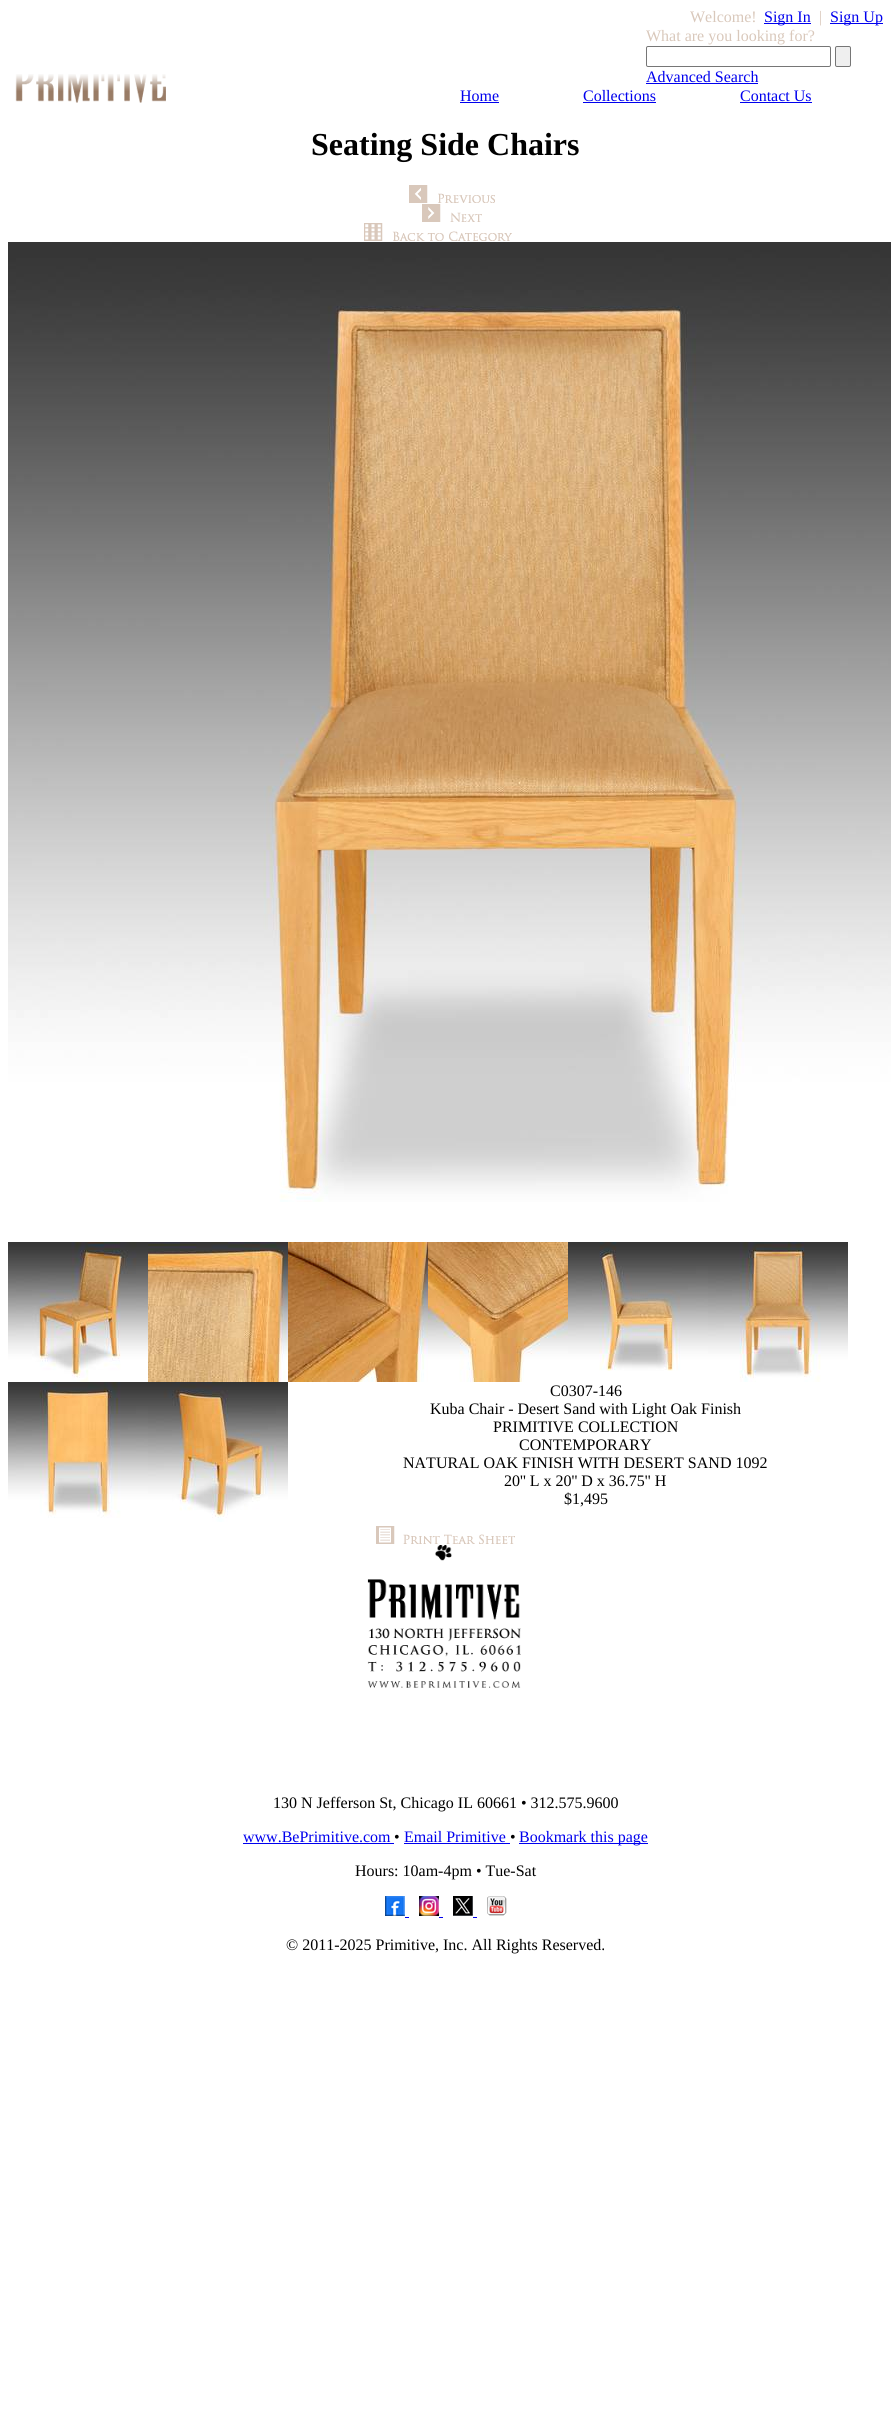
#include <cairo.h>
#include <math.h>
#include <stddef.h>

typedef struct { const char *family; double size; int italic, bold; unsigned color; } style_t;
static cairo_t *ctx;

static void ink(unsigned color) {
    cairo_set_source_rgb(ctx, (color >> 16) / 255.0, (color >> 8 & 255) / 255.0, (color & 255) / 255.0);
}

static void write(double x, double y, const char *s, const style_t *st) {
    cairo_select_font_face(ctx, st->family, st->italic ? CAIRO_FONT_SLANT_ITALIC : CAIRO_FONT_SLANT_NORMAL,
        st->bold ? CAIRO_FONT_WEIGHT_BOLD : CAIRO_FONT_WEIGHT_NORMAL);
    cairo_set_font_size(ctx, st->size);
    ink(st->color);
    cairo_move_to(ctx, x, y);
    cairo_show_text(ctx, s);
}

static void block(double x, double y, double w, double h, unsigned color) {
    ink(color);
    cairo_rectangle(ctx, x, y, w, h);
    cairo_fill(ctx);
}

static void round_path(double x, double y, double w, double h, double r) {
    cairo_new_sub_path(ctx);
    cairo_arc(ctx, x + w - r, y + h - r, r, 0, M_PI / 2);
    cairo_arc(ctx, x + r, y + h - r, r, M_PI / 2, M_PI);
    cairo_arc(ctx, x + r, y + r, r, M_PI, 1.5 * M_PI);
    cairo_arc(ctx, x + w - r, y + r, r, 1.5 * M_PI, 2 * M_PI);
    cairo_close_path(ctx);
}

static void paste(const char *path, double x, double y, double w, double h) {
    cairo_surface_t *image = cairo_image_surface_create_from_png(path);
    cairo_save(ctx);
    cairo_set_source_surface(ctx, image, x, y);
    cairo_rectangle(ctx, x, y, w, h);
    cairo_fill(ctx);
    cairo_restore(ctx);
    cairo_surface_destroy(image);
}

static const style_t s1 = {"Liberation Serif", 16, 0, 0, 0xd9c8bb};
static const style_t s2 = {"Liberation Serif", 16, 0, 0, 0x0000ee};
static const style_t s3 = {"Liberation Serif", 32, 0, 1, 0x000000};
static const style_t s4 = {"Liberation Serif", 16, 0, 0, 0x000000};

int main(void) {
    cairo_surface_t *surface = cairo_image_surface_create(CAIRO_FORMAT_RGB24, 891, 2417);
    ctx = cairo_create(surface);
    cairo_font_options_t *options = cairo_font_options_create();
    cairo_font_options_set_hint_metrics(options, CAIRO_HINT_METRICS_OFF);
    cairo_font_options_set_hint_style(options, CAIRO_HINT_STYLE_NONE);
    cairo_set_font_options(ctx, options);
    cairo_set_miter_limit(ctx, 4);
    ink(0xffffff);
    cairo_paint(ctx);
    write(690, 22, "Welcome!", &s1);
    block(764, 23, 47, 1, 0x0000ee);
    write(764, 22, "Sign In", &s2);
    write(819, 22, "|", &s1);
    block(830, 23, 53, 1, 0x0000ee);
    write(830, 22, "Sign Up", &s2);
    write(646, 41, "What are you looking for?", &s1);
    round_path(646.5, 46.5, 184, 20, 1.5);
    ink(0x767676);
    cairo_set_line_width(ctx, 1);
    cairo_stroke(ctx);
    ink(0xefefef);
    round_path(835.5, 46.5, 15, 20, 1.5);
    cairo_fill_preserve(ctx);
    ink(0x767676);
    cairo_stroke(ctx);
    write(646, 82, "Advanced Search", &s2);
    block(646, 83, 112, 1, 0x0000ee);
    paste("pic1.png", 15, 74, 151, 29);
    write(460, 101, "Home", &s2);
    block(460, 102, 39, 1, 0x0000ee);
    write(583, 101, "Collections", &s2);
    block(583, 102, 73, 1, 0x0000ee);
    write(740, 101, "Contact Us", &s2);
    block(740, 102, 72, 1, 0x0000ee);
    write(311, 155, "Seating Side Chairs", &s3);
    paste("pic2.png", 409, 185, 86, 18);
    paste("pic3.png", 422, 204, 60, 18);
    paste("pic4.png", 364, 223, 148, 18);
    paste("pic5.png", 8, 242, 883, 960);
    paste("pic6.png", 8, 1242, 140, 140);
    paste("pic7.png", 148, 1242, 140, 140);
    paste("pic8.png", 288, 1242, 140, 140);
    paste("pic9.png", 428, 1242, 140, 140);
    paste("pic10.png", 568, 1242, 140, 129);
    paste("pic11.png", 708, 1242, 140, 140);
    paste("pic12.png", 8, 1382, 140, 136);
    paste("pic13.png", 148, 1382, 140, 140);
    write(550, 1396, "C0307-146", &s4);
    write(430, 1414, "Kuba Chair - Desert Sand with Light Oak Finish", &s4);
    write(493, 1432, "PRIMITIVE COLLECTION", &s4);
    write(519, 1450, "CONTEMPORARY", &s4);
    write(403, 1468, "NATURAL OAK FINISH WITH DESERT SAND 1092", &s4);
    write(504, 1486, "20'' L x 20'' D x 36.75'' H", &s4);
    write(564, 1504, "$1,495", &s4);
    paste("pic14.png", 376, 1526, 139, 18);
    paste("pic15.png", 367, 1545, 154, 143);
    write(273, 1808, "130 N Jefferson St, Chicago IL 60661 • 312.575.9600", &s4);
    write(243, 1842, "www.BePrimitive.com", &s2);
    block(243, 1843, 151, 1, 0x0000ee);
    write(394, 1842, "•", &s4);
    write(404, 1842, "Email Primitive", &s2);
    block(404, 1843, 106, 1, 0x0000ee);
    write(510, 1842, "•", &s4);
    block(519, 1843, 129, 1, 0x0000ee);
    write(519, 1842, "Bookmark this page", &s2);
    write(355, 1876, "Hours: 10am-4pm • Tue-Sat", &s4);
    paste("pic16.png", 385, 1896, 20, 20);
    paste("pic17.png", 419, 1896, 20, 20);
    paste("pic18.png", 453, 1896, 20, 20);
    paste("pic19.png", 487, 1896, 20, 20);
    block(405, 1917, 4, 1, 0x0000ee);
    block(439, 1917, 4, 1, 0x0000ee);
    block(473, 1917, 4, 1, 0x0000ee);
    write(286, 1950, "© 2011-2025 Primitive, Inc. All Rights Reserved.", &s4);
    cairo_surface_write_to_png(surface, "screenshot.png");
    cairo_font_options_destroy(options);
    cairo_destroy(ctx);
    cairo_surface_destroy(surface);
    return 0;
}
